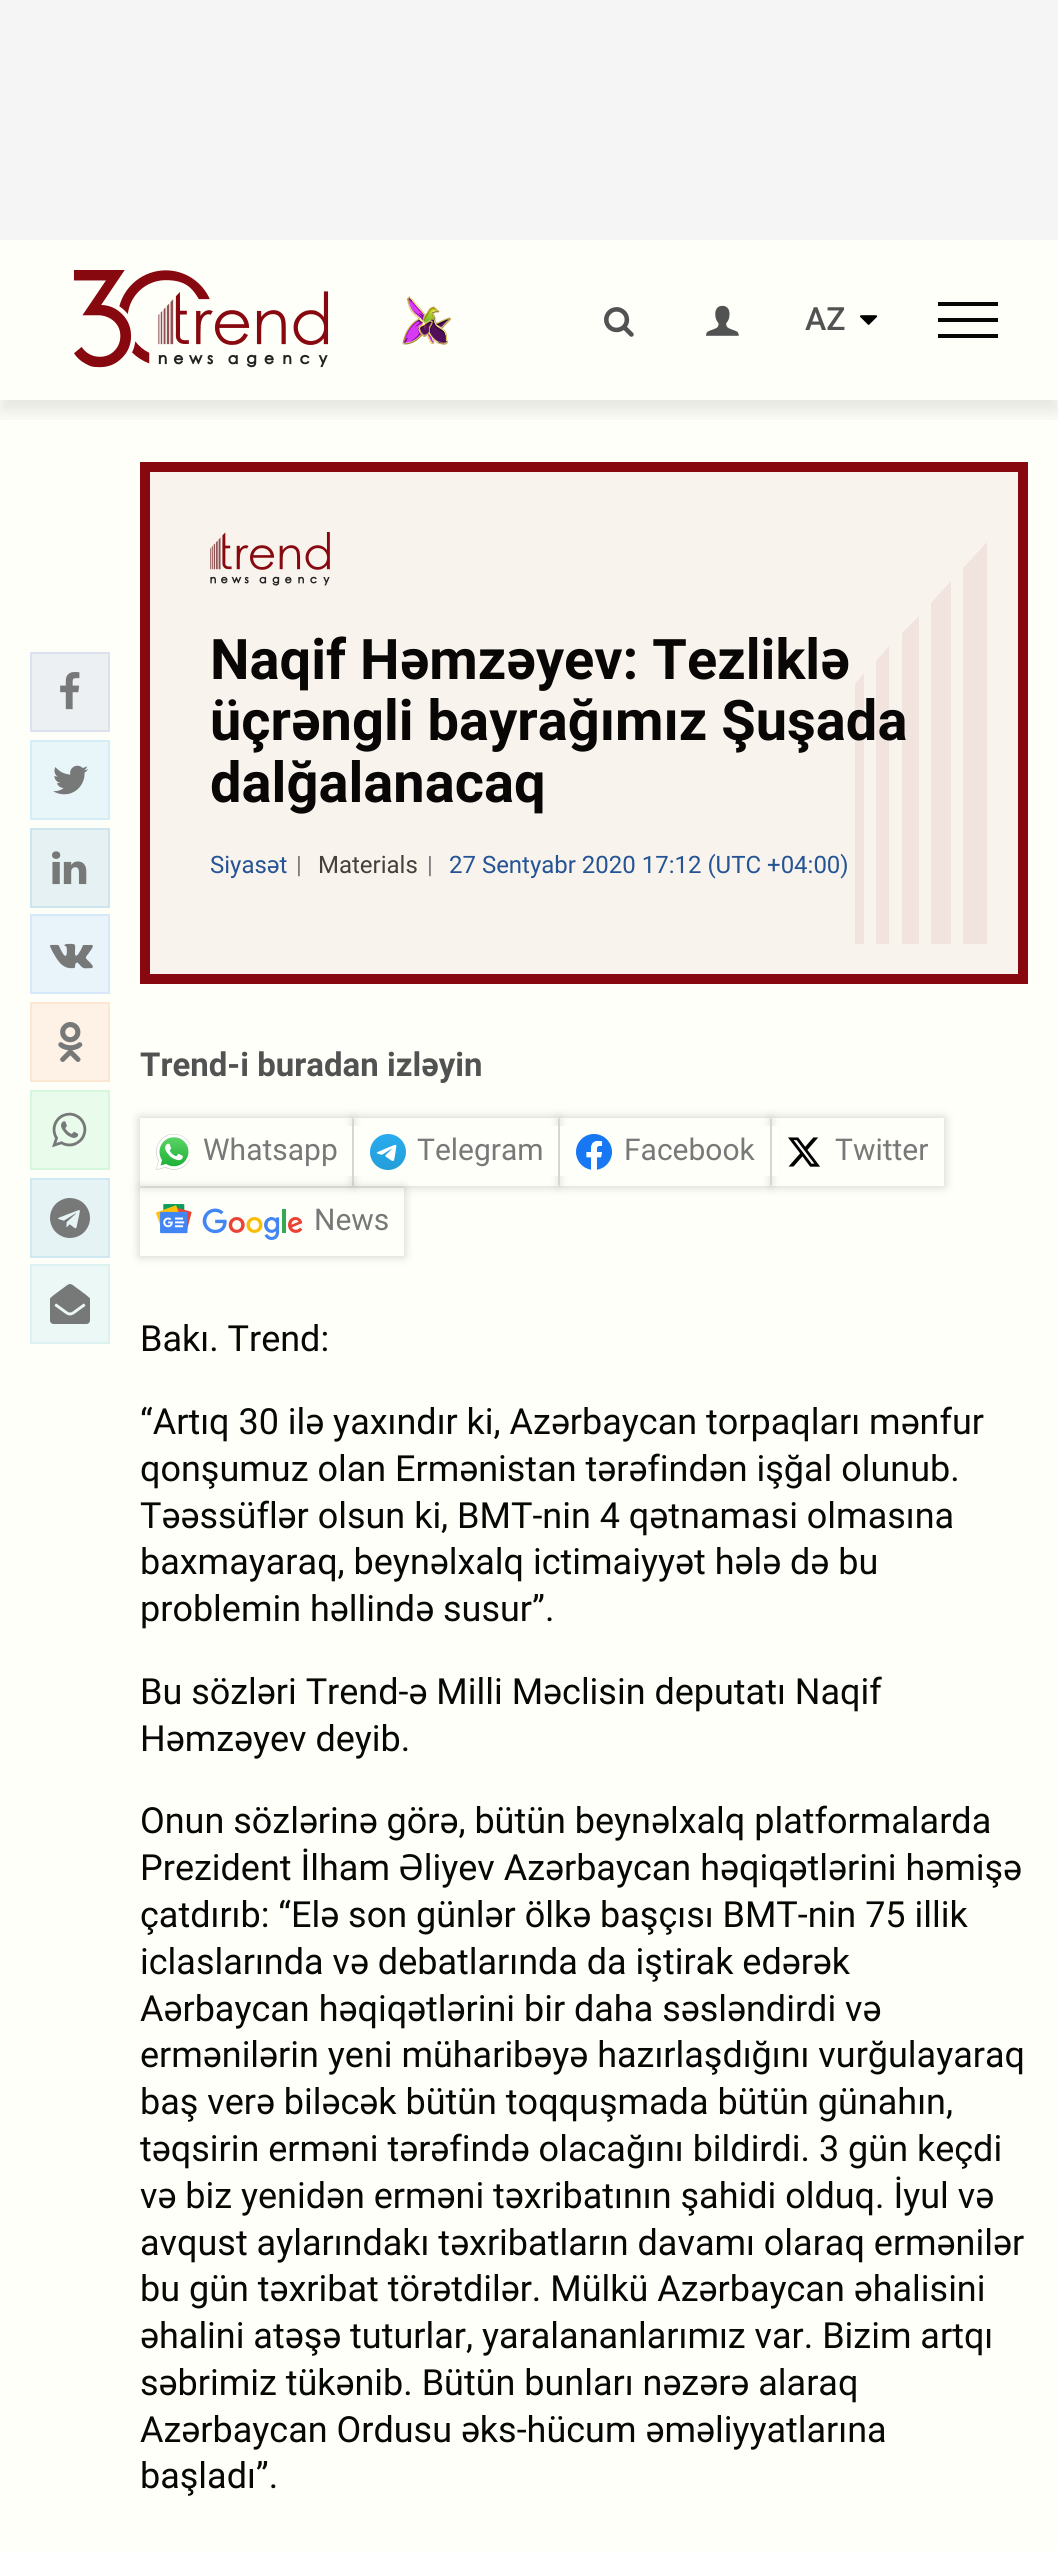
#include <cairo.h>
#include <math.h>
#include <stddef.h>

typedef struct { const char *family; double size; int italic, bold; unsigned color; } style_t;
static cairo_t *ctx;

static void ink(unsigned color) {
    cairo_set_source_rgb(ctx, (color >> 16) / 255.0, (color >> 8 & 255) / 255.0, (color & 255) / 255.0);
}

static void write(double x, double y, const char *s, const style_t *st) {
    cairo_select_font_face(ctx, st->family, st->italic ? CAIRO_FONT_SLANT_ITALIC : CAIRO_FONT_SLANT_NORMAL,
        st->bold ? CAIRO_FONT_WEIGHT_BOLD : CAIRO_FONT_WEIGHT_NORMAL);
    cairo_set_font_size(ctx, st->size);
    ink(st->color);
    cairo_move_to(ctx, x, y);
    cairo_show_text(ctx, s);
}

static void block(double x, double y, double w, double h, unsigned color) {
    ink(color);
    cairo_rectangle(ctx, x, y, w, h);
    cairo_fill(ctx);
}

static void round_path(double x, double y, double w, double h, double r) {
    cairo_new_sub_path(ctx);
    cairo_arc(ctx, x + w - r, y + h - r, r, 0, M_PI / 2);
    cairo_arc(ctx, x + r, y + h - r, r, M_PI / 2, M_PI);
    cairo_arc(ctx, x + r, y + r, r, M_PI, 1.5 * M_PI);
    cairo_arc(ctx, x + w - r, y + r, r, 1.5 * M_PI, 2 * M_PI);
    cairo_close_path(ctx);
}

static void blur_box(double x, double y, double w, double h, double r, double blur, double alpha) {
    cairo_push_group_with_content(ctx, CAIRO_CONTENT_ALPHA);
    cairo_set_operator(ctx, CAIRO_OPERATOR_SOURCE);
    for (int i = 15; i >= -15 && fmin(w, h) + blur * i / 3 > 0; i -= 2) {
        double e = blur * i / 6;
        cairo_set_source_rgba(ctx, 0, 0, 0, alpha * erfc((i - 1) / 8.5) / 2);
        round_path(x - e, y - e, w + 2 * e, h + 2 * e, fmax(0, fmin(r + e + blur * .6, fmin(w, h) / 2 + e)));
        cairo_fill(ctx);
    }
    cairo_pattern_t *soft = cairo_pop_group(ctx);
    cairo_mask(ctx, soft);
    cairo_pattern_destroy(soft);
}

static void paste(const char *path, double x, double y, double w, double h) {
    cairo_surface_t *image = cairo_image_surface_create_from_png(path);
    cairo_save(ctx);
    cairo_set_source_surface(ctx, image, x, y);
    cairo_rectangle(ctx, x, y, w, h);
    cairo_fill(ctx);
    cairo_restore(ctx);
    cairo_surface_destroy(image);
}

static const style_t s1 = {"Roboto Medium", 32, 0, 0, 0x515252};
static const style_t s2 = {"Roboto", 56, 0, 1, 0x080705};
static const style_t s3 = {"Roboto", 24, 0, 0, 0x245494};
static const style_t s4 = {"Roboto", 24, 0, 0, 0x777979};
static const style_t s5 = {"Roboto", 24, 0, 0, 0x434138};
static const style_t s6 = {"Roboto", 33, 0, 1, 0x515252};
static const style_t s7 = {"Roboto", 30, 0, 0, 0x777979};
static const style_t s8 = {"Roboto", 36, 0, 0, 0x080705};

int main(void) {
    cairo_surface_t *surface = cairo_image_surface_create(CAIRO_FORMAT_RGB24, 1058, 2551);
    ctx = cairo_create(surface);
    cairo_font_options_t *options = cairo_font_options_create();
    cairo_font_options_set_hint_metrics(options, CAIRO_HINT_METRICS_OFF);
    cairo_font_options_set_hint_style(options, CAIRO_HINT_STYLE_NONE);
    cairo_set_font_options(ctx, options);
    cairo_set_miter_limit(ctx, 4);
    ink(0xfffffa);
    cairo_paint(ctx);
    cairo_save(ctx);
    cairo_rectangle(ctx, 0, 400, 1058, 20);
    cairo_clip(ctx);
    ink(0x000000);
    blur_box(0, 252, 1058, 160, 0, 10, 0.1);
    cairo_restore(ctx);
    block(0, 0, 1058, 240, 0xf5f5f5);
    paste("pic1.png", 73, 270, 256, 98);
    paste("pic2.png", 402, 296, 50, 49);
    paste("pic3.png", 604, 307, 30, 30);
    paste("pic4.png", 706, 305, 33, 31);
    write(805, 330, "AZ", &s1);
    paste("pic5.png", 860, 315, 18, 10);
    block(938, 302, 60, 4, 0x080705);
    block(938, 318, 60, 4, 0x080705);
    block(938, 334, 60, 4, 0x080705);
    ink(0xecf0f3);
    cairo_rectangle(ctx, 31, 653, 78, 78);
    cairo_fill_preserve(ctx);
    ink(0xdbe2ed);
    cairo_stroke(ctx);
    paste("pic6.png", 60, 672, 20, 38);
    ink(0xe8f6f9);
    cairo_rectangle(ctx, 31, 741, 78, 78);
    cairo_fill_preserve(ctx);
    ink(0xd4eef8);
    cairo_stroke(ctx);
    paste("pic7.png", 53, 765, 35, 30);
    ink(0xe6f1f3);
    cairo_rectangle(ctx, 31, 829, 78, 78);
    cairo_fill_preserve(ctx);
    ink(0xcfe5ed);
    cairo_stroke(ctx);
    paste("pic8.png", 52, 851, 35, 34);
    ink(0xe9f3fa);
    cairo_rectangle(ctx, 31, 915, 78, 78);
    cairo_fill_preserve(ctx);
    ink(0xd6e8fa);
    cairo_stroke(ctx);
    paste("pic9.png", 50, 943, 43, 26);
    ink(0xfdf2e5);
    cairo_rectangle(ctx, 31, 1003, 78, 78);
    cairo_fill_preserve(ctx);
    ink(0xfbe7d2);
    cairo_stroke(ctx);
    paste("pic10.png", 58, 1022, 25, 40);
    ink(0xe9fbeb);
    cairo_rectangle(ctx, 31, 1091, 78, 78);
    cairo_fill_preserve(ctx);
    ink(0xd5f7de);
    cairo_stroke(ctx);
    paste("pic11.png", 52, 1112, 35, 36);
    ink(0xe6f3f5);
    cairo_rectangle(ctx, 31, 1179, 78, 78);
    cairo_fill_preserve(ctx);
    ink(0xcfe8f1);
    cairo_stroke(ctx);
    paste("pic12.png", 50, 1198, 40, 40);
    ink(0xecf8f5);
    cairo_rectangle(ctx, 31, 1265, 78, 78);
    cairo_fill_preserve(ctx);
    ink(0xdbf2f1);
    cairo_stroke(ctx);
    paste("pic13.png", 50, 1284, 40, 40);
    ink(0xf9f3ee);
    cairo_rectangle(ctx, 145, 467, 878, 512);
    cairo_fill_preserve(ctx);
    ink(0x87080e);
    cairo_set_line_width(ctx, 10);
    cairo_stroke(ctx);
    paste("pic14.png", 210, 532, 120, 54);
    cairo_set_source_rgba(ctx, 0.529, 0.031, 0.055, 0.07);
    cairo_new_path(ctx);
    cairo_move_to(ctx, 987, 542);
    cairo_line_to(ctx, 987, 944);
    cairo_line_to(ctx, 963, 944);
    cairo_line_to(ctx, 963, 568);
    cairo_close_path(ctx);
    cairo_move_to(ctx, 931, 944);
    cairo_line_to(ctx, 951, 944);
    cairo_line_to(ctx, 951, 581);
    cairo_line_to(ctx, 931, 603);
    cairo_close_path(ctx);
    cairo_move_to(ctx, 902, 944);
    cairo_line_to(ctx, 919, 944);
    cairo_line_to(ctx, 919, 616);
    cairo_line_to(ctx, 902, 633);
    cairo_close_path(ctx);
    cairo_move_to(ctx, 876, 944);
    cairo_line_to(ctx, 889, 944);
    cairo_line_to(ctx, 889, 646);
    cairo_line_to(ctx, 876, 661);
    cairo_close_path(ctx);
    cairo_move_to(ctx, 855, 944);
    cairo_line_to(ctx, 864, 944);
    cairo_line_to(ctx, 864, 673);
    cairo_line_to(ctx, 855, 684);
    cairo_close_path(ctx);
    cairo_fill(ctx);
    write(210, 679, "Naqif Həmzəyev: Tezliklə", &s2);
    write(210, 740, "üçrəngli bayrağımız Şuşada", &s2);
    write(210, 802, "dalğalanacaq", &s2);
    write(210, 873, "Siyasət", &s3);
    write(296, 873, "|", &s4);
    write(318, 873, "Materials", &s5);
    write(427, 873, "|", &s4);
    write(449, 873, "27 Sentyabr 2020 17:12 (UTC +04:00)", &s3);
    write(140, 1076, "Trend-i buradan izləyin", &s6);
    cairo_save(ctx);
    cairo_set_fill_rule(ctx, CAIRO_FILL_RULE_EVEN_ODD);
    cairo_new_path(ctx);
    cairo_move_to(ctx, 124, 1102);
    cairo_line_to(ctx, 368, 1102);
    cairo_line_to(ctx, 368, 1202);
    cairo_line_to(ctx, 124, 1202);
    cairo_close_path(ctx);
    cairo_move_to(ctx, 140, 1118);
    cairo_line_to(ctx, 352, 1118);
    cairo_line_to(ctx, 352, 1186);
    cairo_line_to(ctx, 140, 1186);
    cairo_close_path(ctx);
    cairo_clip(ctx);
    ink(0x000000);
    blur_box(140, 1118, 212, 68, 0, 5, 0.2);
    cairo_restore(ctx);
    cairo_save(ctx);
    cairo_set_fill_rule(ctx, CAIRO_FILL_RULE_EVEN_ODD);
    cairo_new_path(ctx);
    cairo_move_to(ctx, 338, 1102);
    cairo_line_to(ctx, 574, 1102);
    cairo_line_to(ctx, 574, 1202);
    cairo_line_to(ctx, 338, 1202);
    cairo_close_path(ctx);
    cairo_move_to(ctx, 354, 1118);
    cairo_line_to(ctx, 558, 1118);
    cairo_line_to(ctx, 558, 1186);
    cairo_line_to(ctx, 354, 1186);
    cairo_close_path(ctx);
    cairo_clip(ctx);
    ink(0x000000);
    blur_box(354, 1118, 204, 68, 0, 5, 0.2);
    cairo_restore(ctx);
    cairo_save(ctx);
    cairo_set_fill_rule(ctx, CAIRO_FILL_RULE_EVEN_ODD);
    cairo_new_path(ctx);
    cairo_move_to(ctx, 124, 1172);
    cairo_line_to(ctx, 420, 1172);
    cairo_line_to(ctx, 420, 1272);
    cairo_line_to(ctx, 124, 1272);
    cairo_close_path(ctx);
    cairo_move_to(ctx, 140, 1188);
    cairo_line_to(ctx, 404, 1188);
    cairo_line_to(ctx, 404, 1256);
    cairo_line_to(ctx, 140, 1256);
    cairo_close_path(ctx);
    cairo_clip(ctx);
    ink(0x000000);
    blur_box(140, 1188, 264, 68, 0, 5, 0.2);
    cairo_restore(ctx);
    block(345, 1126, 7, 50, 0xfffffa);
    paste("pic15.png", 156, 1134, 34, 36);
    write(203, 1160, "Whatsapp", &s7);
    cairo_save(ctx);
    cairo_set_fill_rule(ctx, CAIRO_FILL_RULE_EVEN_ODD);
    cairo_new_path(ctx);
    cairo_move_to(ctx, 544, 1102);
    cairo_line_to(ctx, 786, 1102);
    cairo_line_to(ctx, 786, 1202);
    cairo_line_to(ctx, 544, 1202);
    cairo_close_path(ctx);
    cairo_move_to(ctx, 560, 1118);
    cairo_line_to(ctx, 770, 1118);
    cairo_line_to(ctx, 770, 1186);
    cairo_line_to(ctx, 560, 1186);
    cairo_close_path(ctx);
    cairo_clip(ctx);
    ink(0x000000);
    blur_box(560, 1118, 210, 68, 0, 5, 0.2);
    cairo_restore(ctx);
    block(354, 1126, 204, 50, 0xfffffa);
    paste("pic16.png", 370, 1134, 36, 36);
    write(417, 1160, "Telegram", &s7);
    cairo_save(ctx);
    cairo_set_fill_rule(ctx, CAIRO_FILL_RULE_EVEN_ODD);
    cairo_new_path(ctx);
    cairo_move_to(ctx, 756, 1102);
    cairo_line_to(ctx, 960, 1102);
    cairo_line_to(ctx, 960, 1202);
    cairo_line_to(ctx, 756, 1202);
    cairo_close_path(ctx);
    cairo_move_to(ctx, 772, 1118);
    cairo_line_to(ctx, 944, 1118);
    cairo_line_to(ctx, 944, 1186);
    cairo_line_to(ctx, 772, 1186);
    cairo_close_path(ctx);
    cairo_clip(ctx);
    ink(0x000000);
    blur_box(772, 1118, 172, 68, 0, 5, 0.2);
    cairo_restore(ctx);
    block(560, 1126, 210, 50, 0xfffffa);
    paste("pic17.png", 576, 1134, 36, 36);
    write(624, 1160, "Facebook", &s7);
    block(772, 1126, 6, 50, 0xfffffa);
    paste("pic18.png", 788, 1137, 32, 30);
    write(835, 1160, "Twitter", &s7);
    paste("pic19.png", 156, 1204, 146, 36);
    write(314, 1230, "News", &s7);
    write(140, 1351, "Bakı. Trend:", &s8);
    write(140, 1434, "“Artıq 30 ilə yaxındır ki, Azərbaycan torpaqları mənfur", &s8);
    write(140, 1481, "qonşumuz olan Ermənistan tərəfindən işğal olunub.", &s8);
    write(140, 1528, "Təəssüflər olsun ki, BMT-nin 4 qətnamasi olmasına", &s8);
    write(140, 1574, "baxmayaraq, beynəlxalq ictimaiyyət hələ də bu", &s8);
    write(140, 1621, "problemin həllində susur”.", &s8);
    write(140, 1704, "Bu sözləri Trend-ə Milli Məclisin deputatı Naqif", &s8);
    write(140, 1751, "Həmzəyev deyib.", &s8);
    write(140, 1833, "Onun sözlərinə görə, bütün beynəlxalq platformalarda", &s8);
    write(140, 1880, "Prezident İlham Əliyev Azərbaycan həqiqətlərini həmişə", &s8);
    write(140, 1927, "çatdırıb: “Elə son günlər ölkə başçısı BMT-nin 75 illik", &s8);
    write(140, 1974, "iclaslarında və debatlarında da iştirak edərək", &s8);
    write(140, 2021, "Aərbaycan həqiqətlərini bir daha səsləndirdi və", &s8);
    write(140, 2067, "ermənilərin yeni müharibəyə hazırlaşdığını vurğulayaraq", &s8);
    write(140, 2114, "baş verə biləcək bütün toqquşmada bütün günahın,", &s8);
    write(140, 2161, "təqsirin erməni tərəfində olacağını bildirdi. 3 gün keçdi", &s8);
    write(140, 2208, "və biz yenidən erməni təxribatının şahidi olduq. İyul və", &s8);
    write(140, 2255, "avqust aylarındakı təxribatların davamı olaraq ermənilər", &s8);
    write(140, 2301, "bu gün təxribat törətdilər. Mülkü Azərbaycan əhalisini", &s8);
    write(140, 2348, "əhalini atəşə tuturlar, yaralananlarımız var. Bizim artqı", &s8);
    write(140, 2395, "səbrimiz tükənib. Bütün bunları nəzərə alaraq", &s8);
    write(140, 2442, "Azərbaycan Ordusu əks-hücum əməliyyatlarına", &s8);
    write(140, 2488, "başladı”.", &s8);
    cairo_surface_write_to_png(surface, "screenshot.png");
    cairo_font_options_destroy(options);
    cairo_destroy(ctx);
    cairo_surface_destroy(surface);
    return 0;
}
